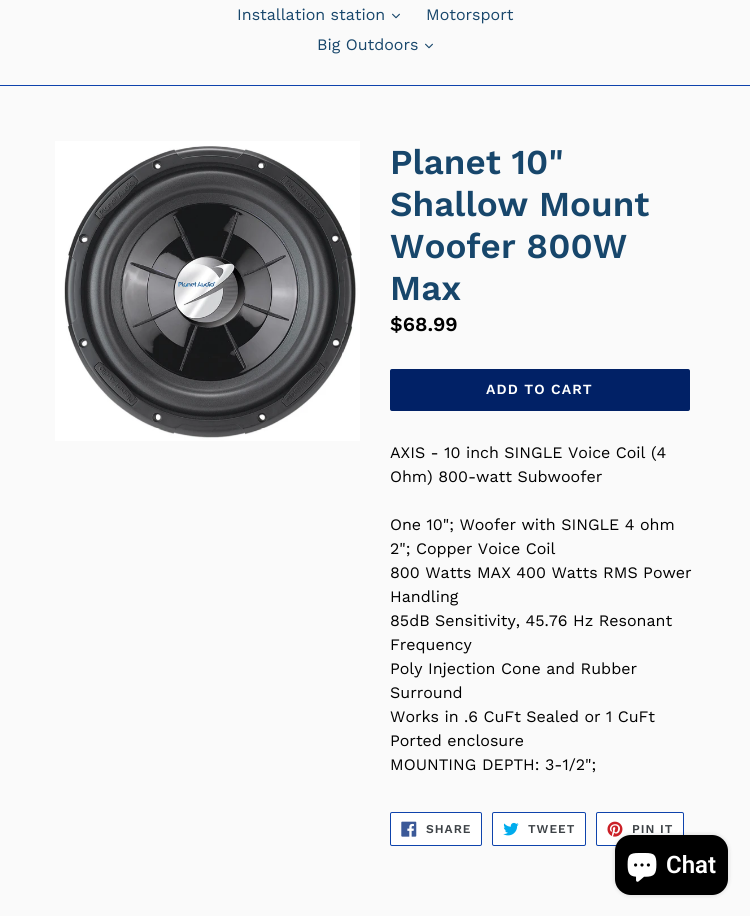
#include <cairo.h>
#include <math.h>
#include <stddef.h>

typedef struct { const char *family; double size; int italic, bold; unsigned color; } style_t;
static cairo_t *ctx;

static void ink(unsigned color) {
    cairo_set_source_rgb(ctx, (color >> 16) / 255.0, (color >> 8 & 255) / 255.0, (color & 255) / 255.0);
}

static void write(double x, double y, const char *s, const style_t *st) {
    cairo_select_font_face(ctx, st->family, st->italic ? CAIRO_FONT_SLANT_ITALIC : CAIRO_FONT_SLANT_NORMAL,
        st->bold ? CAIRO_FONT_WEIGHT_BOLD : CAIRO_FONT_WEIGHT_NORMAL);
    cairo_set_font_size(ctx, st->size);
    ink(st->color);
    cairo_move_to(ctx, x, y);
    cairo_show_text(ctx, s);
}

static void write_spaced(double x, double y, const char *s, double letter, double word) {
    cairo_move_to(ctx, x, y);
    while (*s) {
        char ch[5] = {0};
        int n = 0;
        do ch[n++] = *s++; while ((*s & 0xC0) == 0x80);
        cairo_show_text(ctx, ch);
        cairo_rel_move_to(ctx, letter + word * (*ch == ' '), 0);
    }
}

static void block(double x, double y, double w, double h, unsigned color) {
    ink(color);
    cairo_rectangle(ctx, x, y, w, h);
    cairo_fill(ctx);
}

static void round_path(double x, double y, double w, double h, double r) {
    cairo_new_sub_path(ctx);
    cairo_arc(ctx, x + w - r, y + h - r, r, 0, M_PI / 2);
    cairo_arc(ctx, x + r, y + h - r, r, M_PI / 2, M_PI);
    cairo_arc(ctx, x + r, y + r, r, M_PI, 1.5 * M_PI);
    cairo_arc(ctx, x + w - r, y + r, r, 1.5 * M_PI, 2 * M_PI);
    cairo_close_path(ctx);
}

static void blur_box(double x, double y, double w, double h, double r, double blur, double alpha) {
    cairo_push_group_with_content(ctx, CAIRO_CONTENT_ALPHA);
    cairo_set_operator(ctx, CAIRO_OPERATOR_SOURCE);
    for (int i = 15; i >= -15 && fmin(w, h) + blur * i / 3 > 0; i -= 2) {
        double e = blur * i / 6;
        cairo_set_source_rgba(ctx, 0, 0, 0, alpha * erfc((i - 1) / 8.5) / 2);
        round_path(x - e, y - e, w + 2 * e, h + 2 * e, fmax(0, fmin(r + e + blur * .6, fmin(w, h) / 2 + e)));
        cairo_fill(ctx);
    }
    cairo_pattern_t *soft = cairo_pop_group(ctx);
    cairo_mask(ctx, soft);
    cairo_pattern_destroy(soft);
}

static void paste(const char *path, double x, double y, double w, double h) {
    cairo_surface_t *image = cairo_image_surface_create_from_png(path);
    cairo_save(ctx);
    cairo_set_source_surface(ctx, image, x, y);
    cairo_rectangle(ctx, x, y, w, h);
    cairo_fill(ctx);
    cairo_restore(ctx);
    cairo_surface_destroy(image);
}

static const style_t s1 = {"Work Sans", 16, 0, 0, 0x17466b};
static const style_t s2 = {"Work Sans SemiBold", 35, 0, 0, 0x17466b};
static const style_t s3 = {"Work Sans SemiBold", 20, 0, 0, 0x000000};
static const style_t s4 = {"Work Sans", 16, 0, 0, 0x000000};
static const style_t s5 = {"Roboto SemiBold", 24, 0, 0, 0xffffff};

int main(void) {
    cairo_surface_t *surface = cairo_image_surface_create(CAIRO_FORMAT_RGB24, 750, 916);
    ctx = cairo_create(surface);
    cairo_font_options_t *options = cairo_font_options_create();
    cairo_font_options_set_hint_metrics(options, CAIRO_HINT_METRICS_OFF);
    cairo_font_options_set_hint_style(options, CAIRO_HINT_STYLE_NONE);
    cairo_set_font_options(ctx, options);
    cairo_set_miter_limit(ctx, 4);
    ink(0xfafafa);
    cairo_paint(ctx);
    block(0, 85, 750, 1, 0x0e43ac);
    write(237, 20, "Installation station", &s1);
    paste("pic1.png", 392, 13, 8, 6);
    write(426, 20, "Motorsport", &s1);
    write(317, 50, "Big Outdoors", &s1);
    paste("pic1.png", 425, 43, 8, 6);
    paste("pic2.png", 55, 141, 305, 300);
    write(390, 174, "Planet 10\"", &s2);
    write(390, 216, "Shallow Mount", &s2);
    write(390, 258, "Woofer 800W", &s2);
    write(390, 300, "Max", &s2);
    write(390, 331, "$68.99", &s3);
    ink(0x012166);
    round_path(390, 369, 300, 42, 2);
    cairo_fill(ctx);
    cairo_set_font_size(ctx, 14);
    ink(0xffffff);
    write_spaced(486, 394, "ADD TO CART", 1.1, 0);
    write(390, 458, "AXIS - 10 inch SINGLE Voice Coil (4", &s4);
    write(390, 482, "Ohm) 800-watt Subwoofer", &s4);
    write(390, 530, "One 10\"; Woofer with SINGLE 4 ohm", &s4);
    write(390, 554, "2\"; Copper Voice Coil", &s4);
    write(390, 578, "800 Watts MAX 400 Watts RMS Power", &s4);
    write(390, 602, "Handling", &s4);
    write(390, 626, "85dB Sensitivity, 45.76 Hz Resonant", &s4);
    write(390, 650, "Frequency", &s4);
    write(390, 674, "Poly Injection Cone and Rubber", &s4);
    write(390, 698, "Surround", &s4);
    write(390, 722, "Works in .6 CuFt Sealed or 1 CuFt", &s4);
    write(390, 746, "Ported enclosure", &s4);
    write(390, 770, "MOUNTING DEPTH: 3-1/2\";", &s4);
    ink(0xffffff);
    round_path(390.5, 812.5, 91, 33, 1.5);
    cairo_fill_preserve(ctx);
    ink(0x0e43ac);
    cairo_set_line_width(ctx, 1);
    cairo_stroke(ctx);
    paste("pic3.png", 401, 821, 16, 16);
    cairo_select_font_face(ctx, "Work Sans SemiBold", CAIRO_FONT_SLANT_NORMAL, CAIRO_FONT_WEIGHT_NORMAL);
    cairo_set_font_size(ctx, 12);
    ink(0x3d4246);
    write_spaced(426, 833, "SHARE", 1, 0);
    ink(0xffffff);
    round_path(492.5, 812.5, 93, 33, 1.5);
    cairo_fill_preserve(ctx);
    ink(0x0e43ac);
    cairo_stroke(ctx);
    paste("pic4.png", 503, 822, 16, 14);
    ink(0x3d4246);
    write_spaced(528, 833, "TWEET", 1, 0);
    ink(0xffffff);
    round_path(596.5, 812.5, 87, 33, 1.5);
    cairo_fill_preserve(ctx);
    ink(0x0e43ac);
    cairo_stroke(ctx);
    paste("pic5.png", 607, 821, 16, 16);
    ink(0x3d4246);
    write_spaced(632, 833, "PIN IT", 1, 0);
    ink(0x000000);
    blur_box(615, 835, 113, 60, 16, 2.5, 0.15);
    ink(0x000000);
    round_path(615, 835, 113, 60, 16);
    cairo_fill(ctx);
    paste("pic6.png", 627, 853, 30, 29);
    write(666, 873, "Chat", &s5);
    cairo_surface_write_to_png(surface, "screenshot.png");
    cairo_font_options_destroy(options);
    cairo_destroy(ctx);
    cairo_surface_destroy(surface);
    return 0;
}
